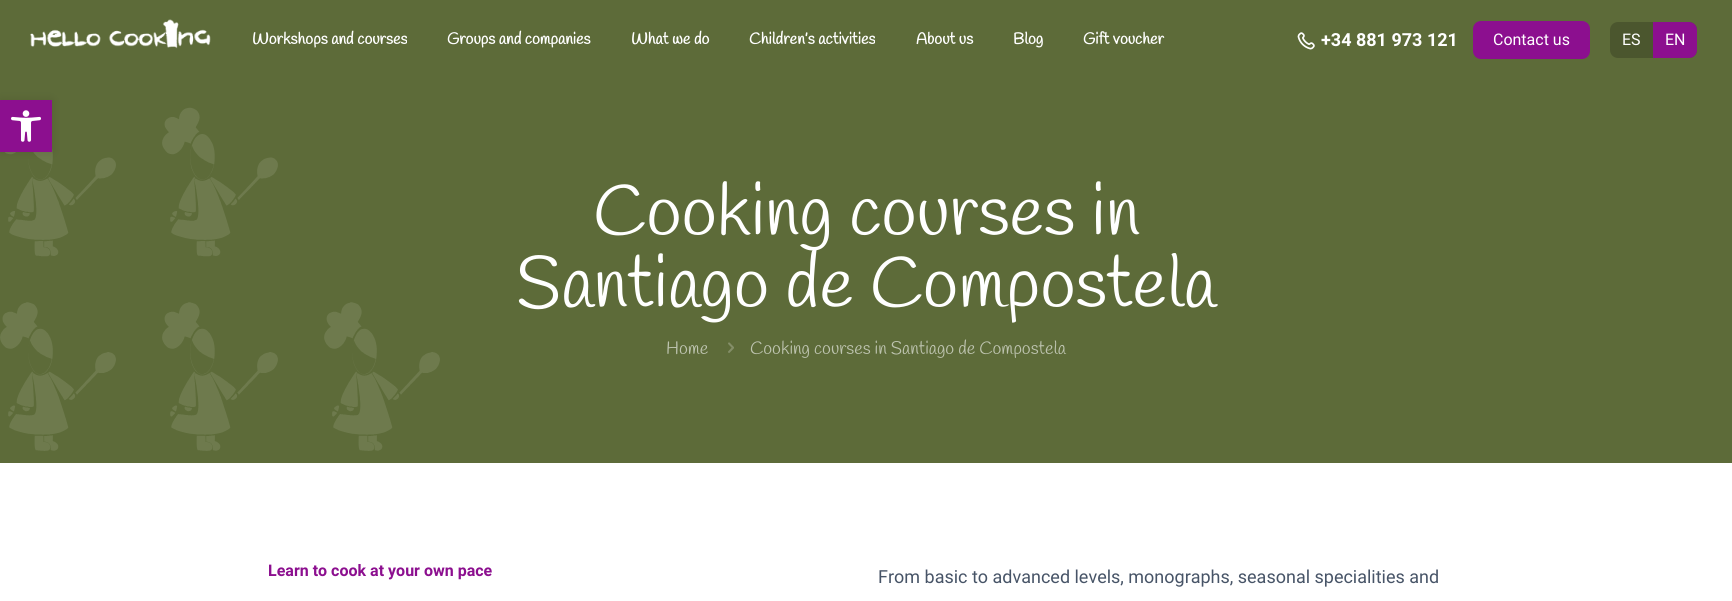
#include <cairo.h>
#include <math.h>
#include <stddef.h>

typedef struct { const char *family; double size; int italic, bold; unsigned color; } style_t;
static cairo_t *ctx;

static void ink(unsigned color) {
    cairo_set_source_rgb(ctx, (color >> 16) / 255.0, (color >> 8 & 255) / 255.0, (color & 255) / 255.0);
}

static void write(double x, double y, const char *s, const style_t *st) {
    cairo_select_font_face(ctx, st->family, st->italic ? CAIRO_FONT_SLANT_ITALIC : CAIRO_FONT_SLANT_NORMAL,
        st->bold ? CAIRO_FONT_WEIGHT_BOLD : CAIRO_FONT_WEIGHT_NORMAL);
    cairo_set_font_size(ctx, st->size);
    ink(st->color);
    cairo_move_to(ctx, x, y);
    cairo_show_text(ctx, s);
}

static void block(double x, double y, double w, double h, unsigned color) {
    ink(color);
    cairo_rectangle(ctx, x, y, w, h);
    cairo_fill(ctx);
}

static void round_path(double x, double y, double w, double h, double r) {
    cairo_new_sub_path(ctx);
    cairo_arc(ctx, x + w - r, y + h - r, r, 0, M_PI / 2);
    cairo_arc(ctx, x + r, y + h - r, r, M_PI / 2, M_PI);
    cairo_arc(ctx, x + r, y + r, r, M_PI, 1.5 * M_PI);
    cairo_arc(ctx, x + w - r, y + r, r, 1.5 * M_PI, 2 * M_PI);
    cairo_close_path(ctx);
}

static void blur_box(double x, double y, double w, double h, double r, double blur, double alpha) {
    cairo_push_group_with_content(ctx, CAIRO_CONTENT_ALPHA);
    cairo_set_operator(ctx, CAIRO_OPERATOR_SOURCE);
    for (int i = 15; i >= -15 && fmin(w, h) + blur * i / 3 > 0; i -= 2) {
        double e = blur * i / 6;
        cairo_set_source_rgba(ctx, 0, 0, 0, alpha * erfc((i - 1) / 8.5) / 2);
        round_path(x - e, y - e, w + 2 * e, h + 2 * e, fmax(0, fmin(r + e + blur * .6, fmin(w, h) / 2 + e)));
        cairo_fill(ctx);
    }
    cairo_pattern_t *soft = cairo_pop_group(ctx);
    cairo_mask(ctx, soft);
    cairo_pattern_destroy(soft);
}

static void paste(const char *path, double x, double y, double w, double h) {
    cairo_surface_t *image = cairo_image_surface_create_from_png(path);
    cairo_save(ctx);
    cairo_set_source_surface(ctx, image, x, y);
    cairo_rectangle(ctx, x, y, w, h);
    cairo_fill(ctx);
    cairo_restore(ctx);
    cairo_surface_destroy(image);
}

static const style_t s1 = {"Handlee", 16, 0, 1, 0xffffff};
static const style_t s2 = {"Roboto", 18, 0, 1, 0xffffff};
static const style_t s3 = {"Roboto", 16, 0, 0, 0xffffff};
static const style_t s4 = {"Handlee", 72, 0, 0, 0xffffff};
static const style_t s5 = {"Handlee", 18, 0, 0, 0xbec4b0};
static const style_t s6 = {"Roboto", 16, 0, 1, 0x8c0f8f};
static const style_t s7 = {"Roboto", 18, 0, 0, 0x475467};

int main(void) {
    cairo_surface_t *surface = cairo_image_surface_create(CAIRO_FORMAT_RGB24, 1732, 601);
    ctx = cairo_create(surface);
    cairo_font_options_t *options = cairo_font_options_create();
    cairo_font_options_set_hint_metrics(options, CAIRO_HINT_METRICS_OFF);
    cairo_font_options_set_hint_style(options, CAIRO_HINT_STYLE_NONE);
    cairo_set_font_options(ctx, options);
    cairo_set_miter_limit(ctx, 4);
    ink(0xffffff);
    cairo_paint(ctx);
    block(0, 0, 1732, 463, 0x5d6b39);
    paste("pic4.png", 0, 107, 440, 344);
    ink(0x000000);
    blur_box(0, 100, 52, 52, 0, 5, 0.1);
    block(0, 100, 52, 52, 0x8c0f8f);
    paste("pic1.png", 11, 110, 30, 32);
    paste("pic2.png", 30, 19, 181, 30);
    write(252, 44, "Workshops and courses", &s1);
    write(447, 44, "Groups and companies", &s1);
    write(631, 44, "What we do", &s1);
    write(749, 44, "Children’s activities", &s1);
    write(916, 44, "About us", &s1);
    write(1013, 44, "Blog", &s1);
    write(1083, 44, "Gift voucher", &s1);
    paste("pic3.png", 1297, 32, 18, 18);
    write(1321, 46, "+34 881 973 121", &s2);
    ink(0x8c0f8f);
    round_path(1473, 21, 117, 38, 8);
    cairo_fill(ctx);
    write(1493, 45, "Contact us", &s3);
    ink(0x4b562e);
    round_path(1610, 22, 87, 36, 8);
    cairo_fill(ctx);
    write(1622, 45, "ES", &s3);
    ink(0x8c0f8f);
    cairo_new_path(ctx);
    cairo_move_to(ctx, 1653, 22);
    cairo_line_to(ctx, 1689, 22);
    cairo_curve_to(ctx, 1693.5, 22, 1697, 25.5, 1697, 30);
    cairo_line_to(ctx, 1697, 50);
    cairo_curve_to(ctx, 1697, 54.5, 1693.5, 58, 1689, 58);
    cairo_line_to(ctx, 1653, 58);
    cairo_close_path(ctx);
    cairo_fill(ctx);
    write(1665, 45, "EN", &s3);
    write(593, 235, "Cooking courses in", &s4);
    write(516, 307, "Santiago de Compostela", &s4);
    write(666, 354, "Home", &s5);
    paste("pic5.png", 728, 342, 6, 11);
    write(750, 354, "Cooking courses in Santiago de Compostela", &s5);
    write(268, 576, "Learn to cook at your own pace", &s6);
    write(878, 583, "From basic to advanced levels, monographs, seasonal specialities and", &s7);
    cairo_surface_write_to_png(surface, "screenshot.png");
    cairo_font_options_destroy(options);
    cairo_destroy(ctx);
    cairo_surface_destroy(surface);
    return 0;
}
